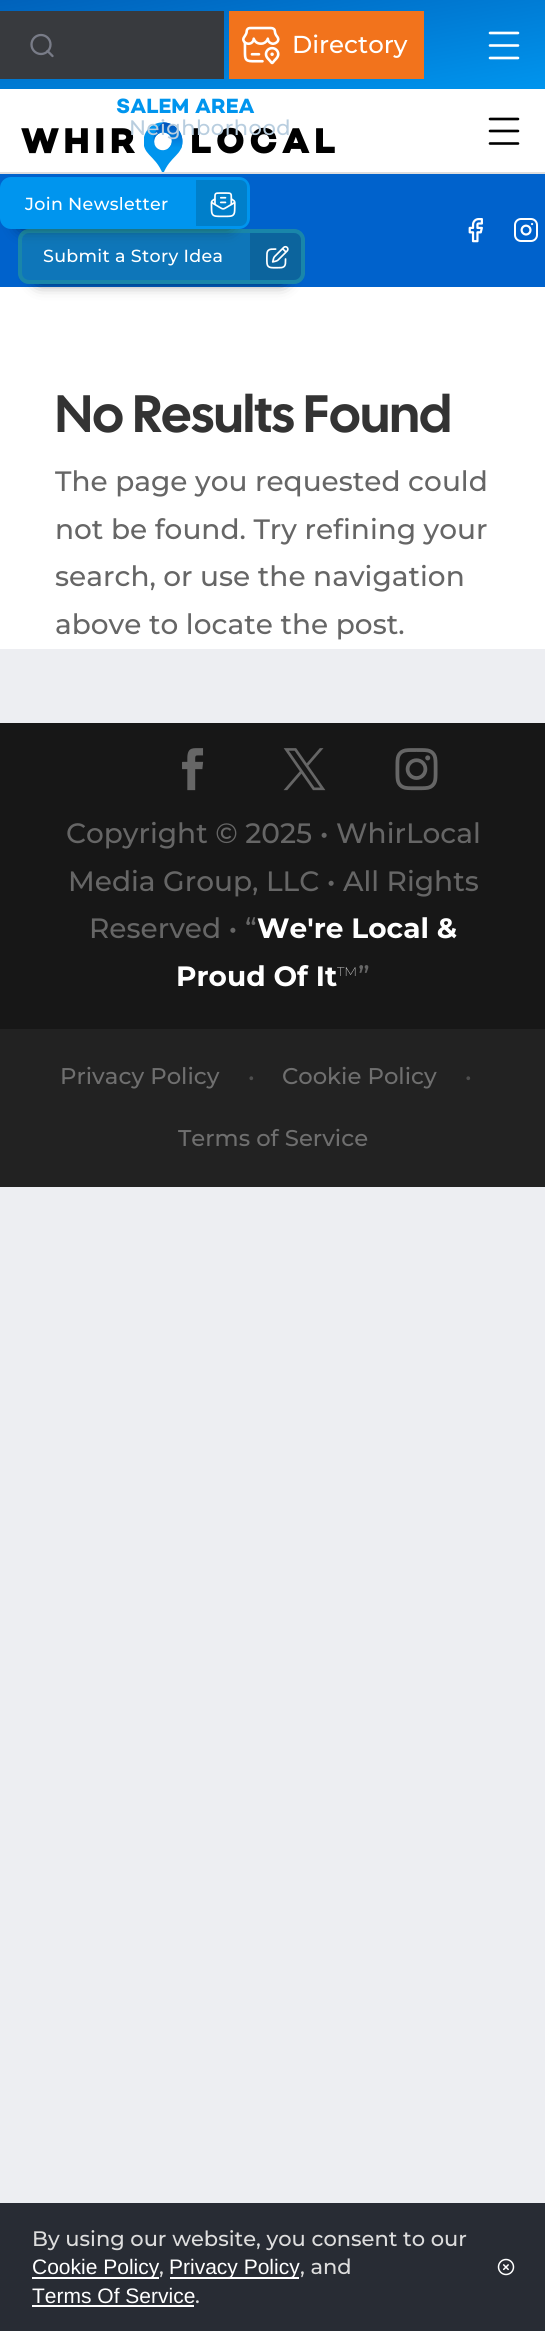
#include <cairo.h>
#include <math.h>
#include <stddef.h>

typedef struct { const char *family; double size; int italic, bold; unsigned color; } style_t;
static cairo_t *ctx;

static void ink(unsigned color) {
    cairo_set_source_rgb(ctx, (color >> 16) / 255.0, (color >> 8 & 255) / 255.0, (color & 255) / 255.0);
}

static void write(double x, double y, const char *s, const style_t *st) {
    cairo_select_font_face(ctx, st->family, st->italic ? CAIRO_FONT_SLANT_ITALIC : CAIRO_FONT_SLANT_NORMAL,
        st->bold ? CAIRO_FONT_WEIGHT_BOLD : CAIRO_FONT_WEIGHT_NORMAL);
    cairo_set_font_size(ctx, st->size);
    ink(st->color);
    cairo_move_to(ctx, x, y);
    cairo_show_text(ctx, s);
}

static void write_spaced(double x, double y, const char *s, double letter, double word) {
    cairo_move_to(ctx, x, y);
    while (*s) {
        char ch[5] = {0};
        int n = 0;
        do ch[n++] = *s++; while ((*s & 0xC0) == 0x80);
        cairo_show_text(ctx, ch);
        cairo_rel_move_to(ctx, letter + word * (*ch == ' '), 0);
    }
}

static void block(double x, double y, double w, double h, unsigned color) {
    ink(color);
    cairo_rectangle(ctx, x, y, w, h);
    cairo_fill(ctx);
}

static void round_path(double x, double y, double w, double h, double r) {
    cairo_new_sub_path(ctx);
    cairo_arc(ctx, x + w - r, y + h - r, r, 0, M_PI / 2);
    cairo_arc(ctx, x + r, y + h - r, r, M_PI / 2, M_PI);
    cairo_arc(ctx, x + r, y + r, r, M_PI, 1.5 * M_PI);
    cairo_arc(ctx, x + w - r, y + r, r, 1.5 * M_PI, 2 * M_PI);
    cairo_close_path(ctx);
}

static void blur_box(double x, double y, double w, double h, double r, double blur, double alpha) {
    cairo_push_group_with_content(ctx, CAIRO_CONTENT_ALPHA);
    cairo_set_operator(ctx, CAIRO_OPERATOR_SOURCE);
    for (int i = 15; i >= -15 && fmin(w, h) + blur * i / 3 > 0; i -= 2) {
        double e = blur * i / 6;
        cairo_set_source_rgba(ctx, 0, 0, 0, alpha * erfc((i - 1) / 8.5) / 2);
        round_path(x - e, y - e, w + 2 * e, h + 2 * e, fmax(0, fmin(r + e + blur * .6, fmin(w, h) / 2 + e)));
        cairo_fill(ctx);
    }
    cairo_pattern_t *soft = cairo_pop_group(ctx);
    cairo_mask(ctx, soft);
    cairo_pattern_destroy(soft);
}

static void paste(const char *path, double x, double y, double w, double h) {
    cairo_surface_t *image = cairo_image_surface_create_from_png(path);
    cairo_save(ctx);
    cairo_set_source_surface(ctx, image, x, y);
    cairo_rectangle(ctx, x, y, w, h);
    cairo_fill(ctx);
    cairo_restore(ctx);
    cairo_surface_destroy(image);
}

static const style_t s1 = {"Montserrat Thin", 24.5, 0, 0, 0xffffff};
static const style_t s2 = {"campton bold", 21, 0, 0, 0x0095ee};
static const style_t s3 = {"Cal Sans", 52.5, 0, 0, 0x333333};
static const style_t s4 = {"Montserrat Thin", 28, 0, 0, 0x666666};
static const style_t s5 = {"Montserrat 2 Thin", 28, 0, 0, 0xffffff};
static const style_t s6 = {"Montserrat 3 Thin", 21, 0, 0, 0xffffff};
static const style_t s7 = {"Montserrat Thin", 22.75, 0, 0, 0x6f6f6f};
static const style_t s8 = {"Montserrat Thin", 21, 0, 0, 0x4e4e4e};
static const style_t s9 = {"Montserrat Thin", 21, 0, 0, 0xdddddd};
static const style_t s10 = {"Liberation Sans", 21, 0, 0, 0xffffff};

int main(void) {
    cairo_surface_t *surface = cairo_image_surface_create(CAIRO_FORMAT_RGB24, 545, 2331);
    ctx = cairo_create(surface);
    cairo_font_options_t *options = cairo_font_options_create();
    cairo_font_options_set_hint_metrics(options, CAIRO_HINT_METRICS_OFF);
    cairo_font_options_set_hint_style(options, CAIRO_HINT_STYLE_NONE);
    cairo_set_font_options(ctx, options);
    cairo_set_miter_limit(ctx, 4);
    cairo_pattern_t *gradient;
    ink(0xedeef2);
    cairo_paint(ctx);
    block(0, 89, 545, 83, 0xffffff);
    block(0, 172, 545, 2, 0xdedede);
    gradient = cairo_pattern_create_linear(289, 135, 257, -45);
    cairo_pattern_add_color_stop_rgba(gradient, 0, 0, 0.584, 0.933, 1);
    cairo_pattern_add_color_stop_rgba(gradient, 1, 0, 0.384, 0.733, 1);
    cairo_set_source(ctx, gradient);
    cairo_pattern_destroy(gradient);
    cairo_rectangle(ctx, 0, 0, 545, 89);
    cairo_fill(ctx);
    block(0, 11, 224, 68, 0x383a3e);
    cairo_arc(ctx, 41, 44.5, 9.5, 0, 2 * M_PI);
    ink(0x797c88);
    cairo_set_line_width(ctx, 2.3);
    cairo_stroke(ctx);
    cairo_new_path(ctx);
    cairo_move_to(ctx, 52.5, 56);
    cairo_line_to(ctx, 47.5, 51);
    cairo_set_line_cap(ctx, CAIRO_LINE_CAP_ROUND);
    cairo_set_line_join(ctx, CAIRO_LINE_JOIN_ROUND);
    cairo_stroke(ctx);
    block(229, 11, 195, 68, 0xf2731c);
    paste("pic1.png", 242, 26, 38, 39);
    write(292, 53, "Directory", &s1);
    cairo_new_path(ctx);
    cairo_move_to(ctx, 490, 33);
    cairo_line_to(ctx, 518, 33);
    cairo_move_to(ctx, 490, 45.5);
    cairo_line_to(ctx, 518, 45.5);
    cairo_move_to(ctx, 490, 58);
    cairo_line_to(ctx, 518, 58);
    cairo_set_line_width(ctx, 2.6);
    cairo_stroke(ctx);
    write(116, 113, "SALEM AREA", &s2);
    cairo_select_font_face(ctx, "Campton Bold", CAIRO_FONT_SLANT_NORMAL, CAIRO_FONT_WEIGHT_BOLD);
    cairo_set_font_size(ctx, 35);
    ink(0x000000);
    write_spaced(21, 153, "WHIR", 5.25, 0);
    paste("pic2.png", 144, 122, 39, 50);
    write_spaced(190, 153, "LOCAL", 5.25, 0);
    cairo_select_font_face(ctx, "Montserrat Thin", CAIRO_FONT_SLANT_NORMAL, CAIRO_FONT_WEIGHT_NORMAL);
    cairo_set_font_size(ctx, 21);
    ink(0xb9cedf);
    write_spaced(129, 135, "Neighborhood", 0.5, 0);
    cairo_new_path(ctx);
    cairo_move_to(ctx, 490, 119);
    cairo_line_to(ctx, 518, 119);
    cairo_move_to(ctx, 490, 131);
    cairo_line_to(ctx, 518, 131);
    cairo_move_to(ctx, 490, 143.5);
    cairo_line_to(ctx, 518, 143.5);
    ink(0x000000);
    cairo_stroke(ctx);
    block(0, 174, 545, 113, 0x0062cc);
    ink(0x000000);
    blur_box(23, 217, 205, 7, 0, 9, 1);
    ink(0x0095ee);
    round_path(2, 179, 246, 48, 9);
    cairo_fill_preserve(ctx);
    cairo_set_line_width(ctx, 4);
    cairo_set_line_cap(ctx, CAIRO_LINE_CAP_BUTT);
    cairo_set_line_join(ctx, CAIRO_LINE_JOIN_MITER);
    cairo_stroke(ctx);
    ink(0x007fca);
    cairo_new_path(ctx);
    cairo_move_to(ctx, 196, 180);
    cairo_line_to(ctx, 240, 180);
    cairo_curve_to(ctx, 244, 180, 247, 183, 247, 187);
    cairo_line_to(ctx, 247, 219);
    cairo_curve_to(ctx, 247, 223, 244, 226, 240, 226);
    cairo_line_to(ctx, 196, 226);
    cairo_close_path(ctx);
    cairo_fill(ctx);
    cairo_set_font_size(ctx, 17.5);
    ink(0xffffff);
    write_spaced(25, 210, "Join Newsletter", 0.3, 0);
    paste("pic3.png", 210, 192, 26, 26);
    block(0, 287, 545, 362, 0xffffff);
    cairo_save(ctx);
    cairo_set_fill_rule(ctx, CAIRO_FILL_RULE_EVEN_ODD);
    cairo_new_path(ctx);
    cairo_move_to(ctx, 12, 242);
    cairo_line_to(ctx, 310, 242);
    cairo_line_to(ctx, 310, 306);
    cairo_line_to(ctx, 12, 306);
    cairo_close_path(ctx);
    cairo_move_to(ctx, 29, 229);
    cairo_line_to(ctx, 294, 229);
    cairo_curve_to(ctx, 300, 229, 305, 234, 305, 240);
    cairo_line_to(ctx, 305, 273);
    cairo_curve_to(ctx, 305, 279, 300, 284, 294, 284);
    cairo_line_to(ctx, 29, 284);
    cairo_curve_to(ctx, 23, 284, 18, 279, 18, 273);
    cairo_line_to(ctx, 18, 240);
    cairo_curve_to(ctx, 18, 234, 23, 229, 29, 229);
    cairo_close_path(ctx);
    cairo_clip(ctx);
    ink(0x000000);
    blur_box(40, 270, 242, 8, 0, 9, 1);
    cairo_restore(ctx);
    cairo_set_source_rgba(ctx, 0.278, 0.796, 0.431, 0.2);
    round_path(18, 229, 287, 55, 11);
    cairo_fill(ctx);
    round_path(20, 231, 283, 51, 9);
    cairo_stroke(ctx);
    cairo_set_source_rgba(ctx, 0, 0, 0, 0.15);
    cairo_new_path(ctx);
    cairo_move_to(ctx, 250, 233);
    cairo_line_to(ctx, 294, 233);
    cairo_curve_to(ctx, 298, 233, 301, 236, 301, 240);
    cairo_line_to(ctx, 301, 273);
    cairo_curve_to(ctx, 301, 277, 298, 280, 294, 280);
    cairo_line_to(ctx, 250, 280);
    cairo_close_path(ctx);
    cairo_fill(ctx);
    ink(0xffffff);
    write_spaced(43, 262, "Submit a Story Idea", 0.3, 0);
    paste("pic4.png", 266, 245, 23, 24);
    paste("pic5.png", 468, 218, 15, 25);
    paste("pic6.png", 514, 218, 24, 24);
    write(55, 432, "No Results Found", &s3);
    write(55, 491, "The page you requested could", &s4);
    write(55, 539, "not be found. Try refining your", &s4);
    write(55, 586, "search, or use the navigation", &s4);
    write(55, 634, "above to locate the post.", &s4);
    block(0, 1029, 545, 158, 0x222222);
    block(0, 723, 545, 306, 0x171717);
    paste("pic7.png", 182, 748, 22, 43);
    paste("pic8.png", 283, 748, 43, 43);
    paste("pic9.png", 395, 748, 43, 43);
    write(66, 843, "Copyright © 2025 • WhirLocal", &s4);
    write(68, 891, "Media Group, LLC • All Rights", &s4);
    write(89, 938, "Reserved • “", &s4);
    write(257, 938, "We're Local &", &s5);
    write(176, 986, "Proud Of It", &s5);
    write(337, 982, "™", &s6);
    write(358, 986, "”", &s4);
    write(60, 1084, "Privacy Policy", &s7);
    write(248, 1084, "•", &s8);
    write(282, 1084, "Cookie Policy", &s7);
    write(465, 1084, "•", &s8);
    write(178, 1146, "Terms of Service", &s7);
    block(0, 2203, 545, 128, 0x282c34);
    write(32, 2246, "By using our website, you consent to our", &s9);
    block(32, 2277, 127, 2, 0xffffff);
    write(32, 2274, "Cookie Policy", &s10);
    write(159, 2274, ",", &s9);
    block(170, 2277, 129, 2, 0xffffff);
    write(169, 2274, "Privacy Policy", &s10);
    write(300, 2274, ", and", &s9);
    write(32, 2303, "Terms Of Service", &s10);
    block(32, 2305, 162, 2, 0xffffff);
    write(195, 2303, ".", &s9);
    paste("pic10.png", 497, 2258, 18, 18);
    cairo_surface_write_to_png(surface, "screenshot.png");
    cairo_font_options_destroy(options);
    cairo_destroy(ctx);
    cairo_surface_destroy(surface);
    return 0;
}
